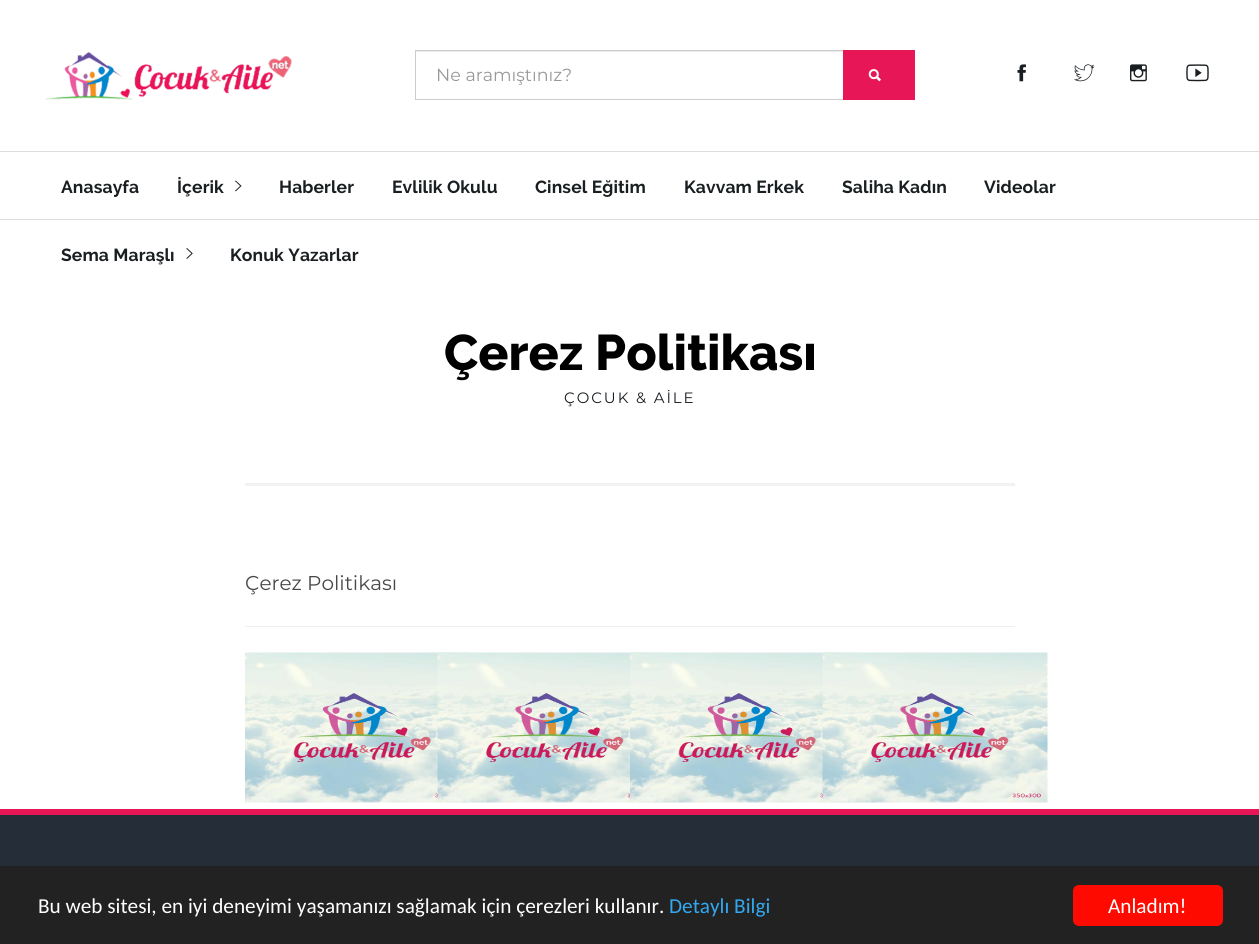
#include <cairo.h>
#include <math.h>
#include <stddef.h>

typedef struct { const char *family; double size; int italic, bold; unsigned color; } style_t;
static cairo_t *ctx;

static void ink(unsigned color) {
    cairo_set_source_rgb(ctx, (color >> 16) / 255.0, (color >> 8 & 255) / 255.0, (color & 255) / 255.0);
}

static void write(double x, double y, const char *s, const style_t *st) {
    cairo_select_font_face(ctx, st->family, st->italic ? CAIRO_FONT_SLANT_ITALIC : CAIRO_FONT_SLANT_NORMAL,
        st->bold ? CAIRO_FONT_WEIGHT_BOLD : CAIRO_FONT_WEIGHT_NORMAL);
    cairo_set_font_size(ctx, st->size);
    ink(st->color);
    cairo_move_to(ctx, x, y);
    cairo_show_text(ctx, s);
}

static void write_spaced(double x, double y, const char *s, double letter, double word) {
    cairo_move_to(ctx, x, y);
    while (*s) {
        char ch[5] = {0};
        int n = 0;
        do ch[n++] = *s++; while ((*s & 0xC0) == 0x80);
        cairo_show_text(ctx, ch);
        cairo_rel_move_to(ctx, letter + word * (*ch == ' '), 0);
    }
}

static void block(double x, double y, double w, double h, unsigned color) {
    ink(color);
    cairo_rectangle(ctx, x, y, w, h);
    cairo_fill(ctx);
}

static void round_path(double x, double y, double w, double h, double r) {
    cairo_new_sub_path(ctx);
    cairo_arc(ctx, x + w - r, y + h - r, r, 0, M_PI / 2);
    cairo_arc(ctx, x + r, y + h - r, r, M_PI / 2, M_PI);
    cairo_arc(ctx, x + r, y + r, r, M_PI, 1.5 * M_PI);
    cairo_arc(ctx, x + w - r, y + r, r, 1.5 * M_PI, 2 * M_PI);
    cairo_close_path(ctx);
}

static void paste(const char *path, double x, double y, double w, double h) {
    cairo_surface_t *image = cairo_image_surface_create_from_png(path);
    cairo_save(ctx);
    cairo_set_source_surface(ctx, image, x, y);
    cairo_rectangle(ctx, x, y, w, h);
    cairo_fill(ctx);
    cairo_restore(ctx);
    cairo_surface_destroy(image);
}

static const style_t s1 = {"Montserrat", 17.5, 0, 0, 0x999999};
static const style_t s2 = {"Raleway ExtraBold", 50, 0, 0, 0x000000};
static const style_t s3 = {"Montserrat", 20, 0, 0, 0x484848};
static const style_t s4 = {"Carlito", 21.25, 0, 0, 0xffffff};
static const style_t s5 = {"Carlito", 21.25, 0, 0, 0x31a8f0};

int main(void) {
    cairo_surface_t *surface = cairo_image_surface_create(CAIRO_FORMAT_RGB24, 1259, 944);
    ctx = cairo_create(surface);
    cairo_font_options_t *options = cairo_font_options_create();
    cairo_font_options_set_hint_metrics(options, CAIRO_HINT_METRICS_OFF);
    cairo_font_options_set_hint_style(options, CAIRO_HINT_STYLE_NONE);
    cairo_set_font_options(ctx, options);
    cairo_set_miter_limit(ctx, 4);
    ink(0xffffff);
    cairo_paint(ctx);
    paste("pic1.png", 45, 52, 247, 48);
    block(416, 51, 427, 1, 0xececec);
    cairo_rectangle(ctx, 415.5, 50.5, 428, 49);
    ink(0xcccccc);
    cairo_set_line_width(ctx, 1);
    cairo_stroke(ctx);
    write(436, 81, "Ne aramıştınız?", &s1);
    block(843, 50, 72, 50, 0xe61657);
    paste("pic2.png", 868, 69, 13, 13);
    paste("pic3.png", 1017, 64, 9, 18);
    paste("pic4.png", 1074, 64, 21, 18);
    paste("pic5.png", 1130, 64, 17, 18);
    paste("pic6.png", 1186, 64, 23, 18);
    block(0, 151, 1259, 1, 0xdddddd);
    block(0, 219, 1259, 1, 0xdddddd);
    cairo_select_font_face(ctx, "Raleway", CAIRO_FONT_SLANT_NORMAL, CAIRO_FONT_WEIGHT_BOLD);
    ink(0x191e21);
    write_spaced(61, 193, "Anasayfa", 0.1, 0);
    write_spaced(177, 193, "İçerik", 0.1, 0);
    paste("pic7.png", 235, 180, 7, 12);
    write_spaced(279, 193, "Haberler", 0.1, 0);
    write_spaced(392, 193, "Evlilik Okulu", 0.1, 0);
    write_spaced(535, 193, "Cinsel Eğitim", 0.1, 0);
    write_spaced(684, 193, "Kavvam Erkek", 0.1, 0);
    write_spaced(842, 193, "Saliha Kadın", 0.1, 0);
    write_spaced(984, 193, "Videolar", 0.1, 0);
    write_spaced(61, 261, "Sema Maraşlı", 0.1, 0);
    paste("pic8.png", 186, 248, 7, 11);
    write_spaced(230, 261, "Konuk Yazarlar", 0.1, 0);
    write(444, 370, "Çerez Politikası", &s2);
    cairo_select_font_face(ctx, "Montserrat", CAIRO_FONT_SLANT_NORMAL, CAIRO_FONT_WEIGHT_NORMAL);
    cairo_set_font_size(ctx, 15);
    ink(0x191e21);
    write_spaced(564, 403, "ÇOCUK & AİLE", 1.9, 0);
    block(245, 483, 770, 3, 0xf2f2f2);
    write(245, 590, "Çerez Politikası", &s3);
    block(245, 626, 770, 1, 0xeeeeee);
    paste("pic9.png", 245, 652, 225, 151);
    paste("pic10.png", 437, 652, 226, 151);
    paste("pic11.png", 630, 652, 225, 151);
    paste("pic12.png", 822, 652, 226, 151);
    block(0, 815, 1259, 51, 0x252e38);
    block(0, 809, 1259, 6, 0xe61657);
    block(0, 866, 1259, 78, 0x222222);
    write(38, 913, "Bu web sitesi, en iyi deneyimi yaşamanızı sağlamak için çerezleri kullanır.", &s4);
    write(669, 913, "Detaylı Bilgi", &s5);
    ink(0xff0a00);
    round_path(1073, 885, 150, 41, 6);
    cairo_fill(ctx);
    write(1108, 913, "Anladım!", &s4);
    cairo_surface_write_to_png(surface, "screenshot.png");
    cairo_font_options_destroy(options);
    cairo_destroy(ctx);
    cairo_surface_destroy(surface);
    return 0;
}
